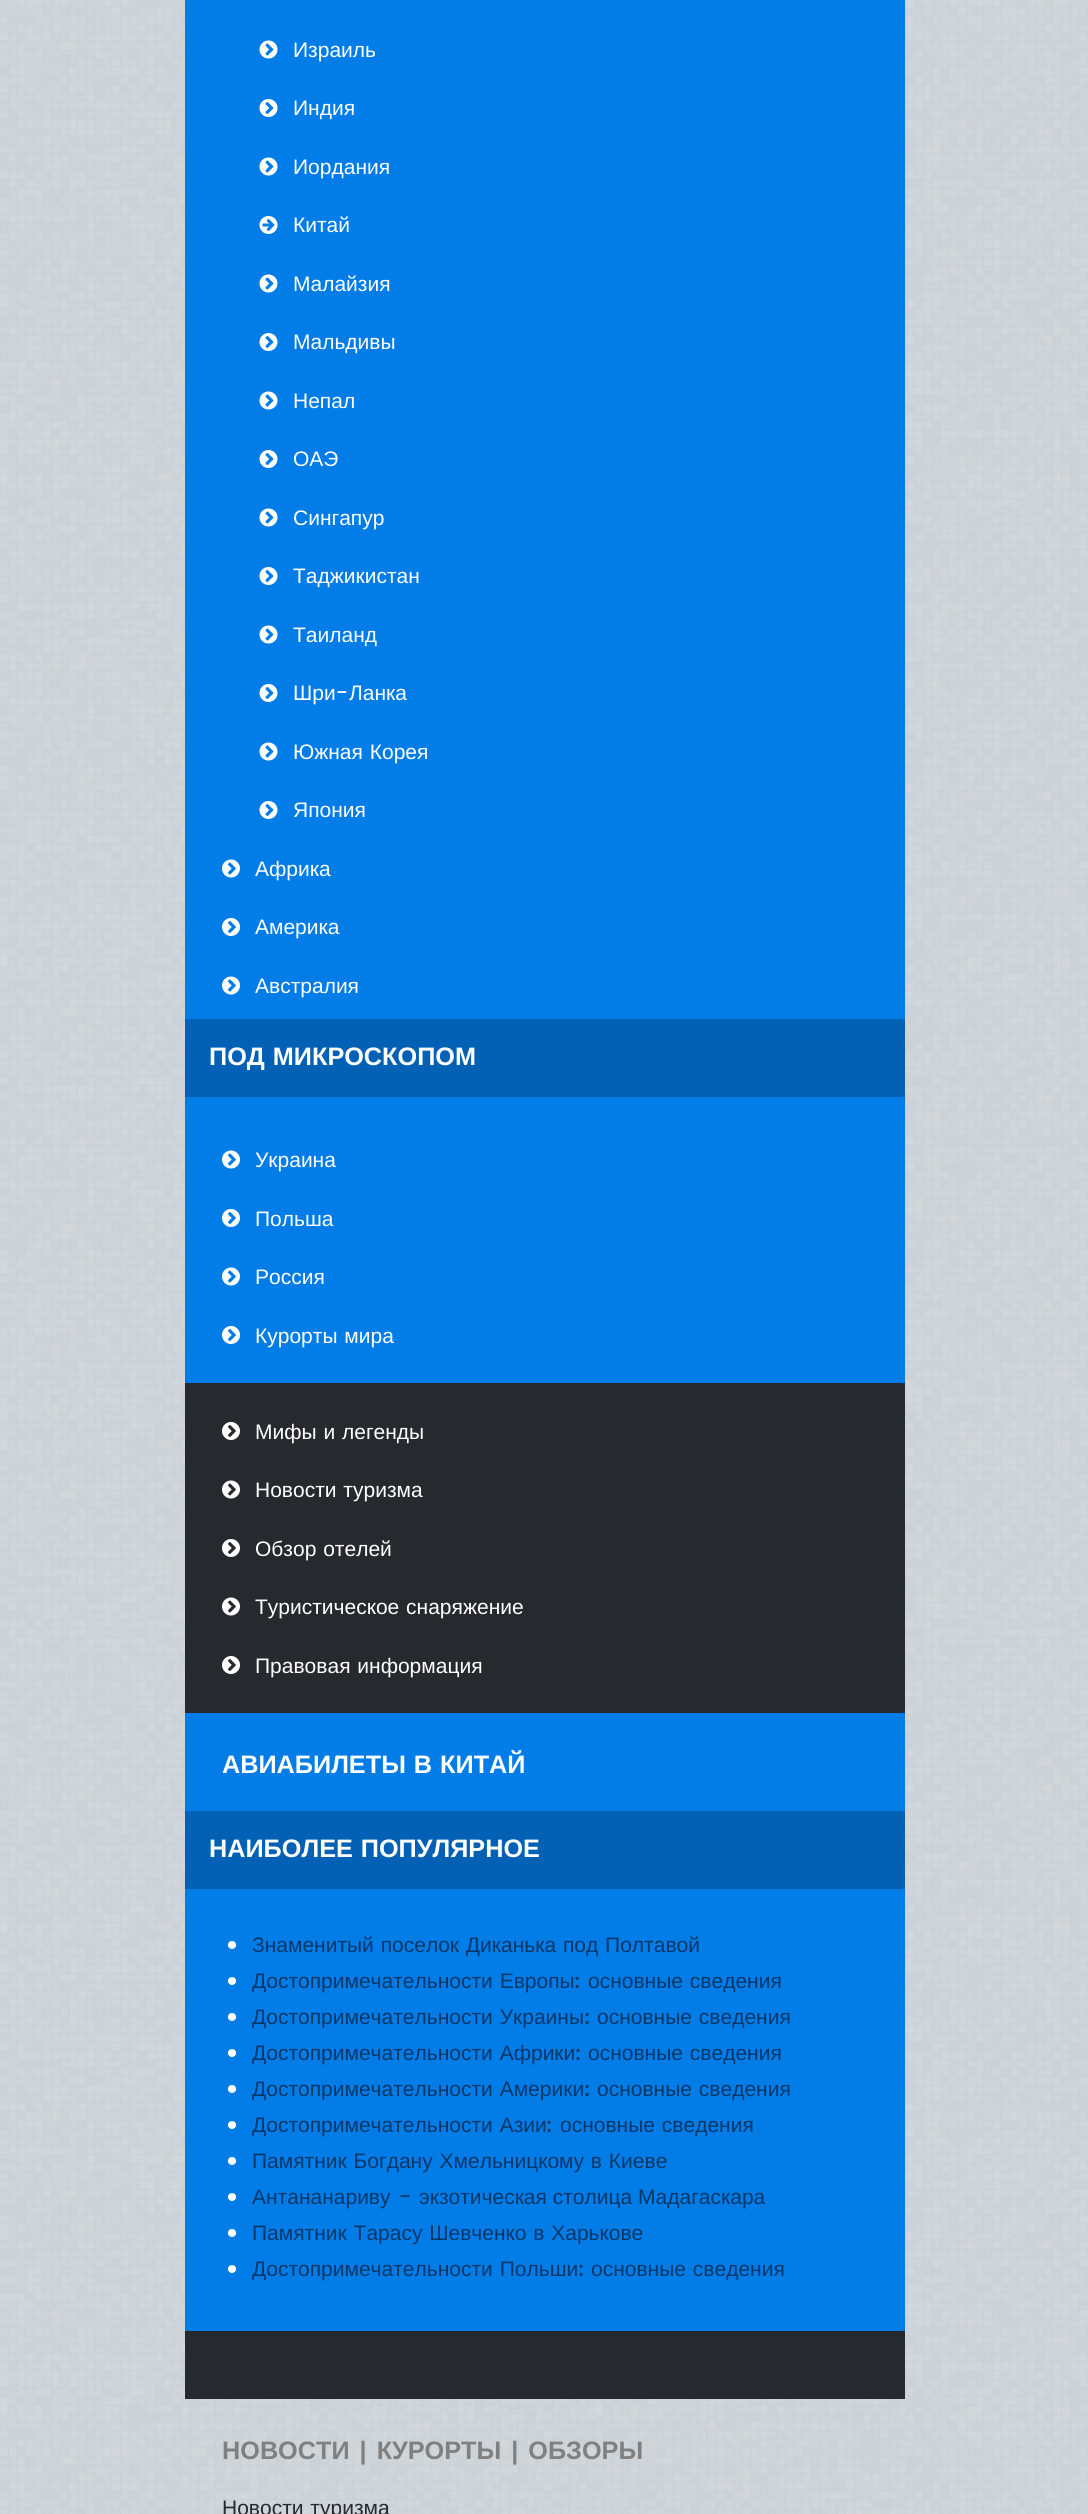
#include <cairo.h>
#include <math.h>
#include <stddef.h>

typedef struct { const char *family; double size; int italic, bold; unsigned color; } style_t;
static cairo_t *ctx;

static void ink(unsigned color) {
    cairo_set_source_rgb(ctx, (color >> 16) / 255.0, (color >> 8 & 255) / 255.0, (color & 255) / 255.0);
}

static void write(double x, double y, const char *s, const style_t *st) {
    cairo_select_font_face(ctx, st->family, st->italic ? CAIRO_FONT_SLANT_ITALIC : CAIRO_FONT_SLANT_NORMAL,
        st->bold ? CAIRO_FONT_WEIGHT_BOLD : CAIRO_FONT_WEIGHT_NORMAL);
    cairo_set_font_size(ctx, st->size);
    ink(st->color);
    cairo_move_to(ctx, x, y);
    cairo_show_text(ctx, s);
}

static void write_spaced(double x, double y, const char *s, double letter, double word) {
    cairo_move_to(ctx, x, y);
    while (*s) {
        char ch[5] = {0};
        int n = 0;
        do ch[n++] = *s++; while ((*s & 0xC0) == 0x80);
        cairo_show_text(ctx, ch);
        cairo_rel_move_to(ctx, letter + word * (*ch == ' '), 0);
    }
}

static void block(double x, double y, double w, double h, unsigned color) {
    ink(color);
    cairo_rectangle(ctx, x, y, w, h);
    cairo_fill(ctx);
}

static void paste(const char *path, double x, double y, double w, double h) {
    cairo_surface_t *image = cairo_image_surface_create_from_png(path);
    cairo_save(ctx);
    cairo_set_source_surface(ctx, image, x, y);
    cairo_rectangle(ctx, x, y, w, h);
    cairo_fill(ctx);
    cairo_restore(ctx);
    cairo_surface_destroy(image);
}

static const style_t s1 = {"Liberation Sans", 21, 0, 0, 0xffffff};
static const style_t s2 = {"Merriweather Sans", 21, 0, 0, 0xffffff};
static const style_t s3 = {"Merriweather Sans", 21, 0, 0, 0x013869};
static const style_t s4 = {"Liberation Sans", 21, 0, 0, 0x013869};

int main(void) {
    cairo_surface_t *surface = cairo_image_surface_create(CAIRO_FORMAT_RGB24, 1088, 2514);
    ctx = cairo_create(surface);
    cairo_font_options_t *options = cairo_font_options_create();
    cairo_font_options_set_hint_metrics(options, CAIRO_HINT_METRICS_OFF);
    cairo_font_options_set_hint_style(options, CAIRO_HINT_STYLE_NONE);
    cairo_set_font_options(ctx, options);
    cairo_set_miter_limit(ctx, 4);
    ink(0xcbd2d7);
    cairo_paint(ctx);
    paste("pic1.png", 0, 0, 1088, 2514);
    block(185, 1383, 720, 1016, 0x262a2f);
    block(185, 0, 720, 1019, 0x027ce7);
    paste("pic2.png", 259, 40, 19, 19);
    write(293, 57, "Израиль", &s1);
    paste("pic3.png", 259, 99, 19, 18);
    write(293, 115, "Индия", &s1);
    paste("pic2.png", 259, 157, 19, 19);
    write(293, 174, "Иордания", &s1);
    paste("pic4.png", 259, 216, 19, 18);
    write(293, 232, "Китай", &s1);
    paste("pic2.png", 259, 274, 19, 19);
    write(293, 291, "Малайзия", &s1);
    paste("pic3.png", 259, 333, 19, 18);
    write(293, 349, "Мальдивы", &s1);
    paste("pic2.png", 259, 391, 19, 19);
    write(293, 408, "Непал", &s1);
    paste("pic3.png", 259, 450, 19, 18);
    write(293, 466, "ОАЭ", &s1);
    paste("pic2.png", 259, 508, 19, 19);
    write(293, 525, "Сингапур", &s1);
    paste("pic3.png", 259, 567, 19, 18);
    write(293, 583, "Таджикистан", &s1);
    paste("pic2.png", 259, 625, 19, 19);
    write(293, 642, "Таиланд", &s1);
    paste("pic3.png", 259, 684, 19, 18);
    write(293, 700, "Шри", &s1);
    write(335, 700, "-", &s2);
    write(349, 700, "Ланка", &s1);
    paste("pic2.png", 259, 742, 19, 19);
    write_spaced(293, 759, "Южная Корея", 0, 1);
    paste("pic3.png", 259, 801, 19, 18);
    write(293, 817, "Япония", &s1);
    paste("pic5.png", 222, 859, 18, 19);
    write(255, 876, "Африка", &s1);
    paste("pic6.png", 222, 918, 18, 18);
    write(255, 934, "Америка", &s1);
    paste("pic5.png", 222, 976, 18, 19);
    write(255, 993, "Австралия", &s1);
    block(185, 1097, 720, 286, 0x027ce7);
    block(185, 1019, 720, 78, 0x0261b4);
    cairo_select_font_face(ctx, "Liberation Sans", CAIRO_FONT_SLANT_NORMAL, CAIRO_FONT_WEIGHT_BOLD);
    cairo_set_font_size(ctx, 25.25);
    ink(0xffffff);
    write_spaced(209, 1065, "ПОД МИКРОСКОПОМ", 0, 1);
    paste("pic5.png", 222, 1150, 18, 19);
    write(255, 1167, "Украина", &s1);
    paste("pic6.png", 222, 1209, 18, 18);
    write(255, 1226, "Польша", &s1);
    paste("pic5.png", 222, 1267, 18, 19);
    write(255, 1284, "Россия", &s1);
    paste("pic6.png", 222, 1326, 18, 18);
    write_spaced(255, 1343, "Курорты мира", 0, 1);
    paste("pic7.png", 222, 1422, 18, 18);
    write_spaced(255, 1439, "Мифы и легенды", 0, 1);
    paste("pic8.png", 222, 1480, 18, 19);
    write_spaced(255, 1497, "Новости туризма", 0, 1);
    paste("pic7.png", 222, 1539, 18, 18);
    write_spaced(255, 1556, "Обзор отелей", 0, 1);
    paste("pic8.png", 222, 1597, 18, 19);
    write_spaced(255, 1614, "Туристическое снаряжение", 0, 1);
    paste("pic7.png", 222, 1656, 18, 18);
    write_spaced(255, 1673, "Правовая информация", 0, 1);
    block(185, 1713, 720, 98, 0x027ce7);
    cairo_select_font_face(ctx, "Liberation Sans", CAIRO_FONT_SLANT_NORMAL, CAIRO_FONT_WEIGHT_BOLD);
    cairo_set_font_size(ctx, 25.25);
    ink(0xffffff);
    write_spaced(222, 1773, "АВИАБИЛЕТЫ В КИТАЙ", 0, 1);
    block(185, 1889, 720, 442, 0x027ce7);
    block(185, 1811, 720, 78, 0x0261b4);
    ink(0xffffff);
    write_spaced(209, 1857, "НАИБОЛЕЕ ПОПУЛЯРНОЕ", 0, 1);
    cairo_new_path(ctx);
    cairo_arc(ctx, 232, 1945, 4, 0, 2 * M_PI);
    cairo_fill(ctx);
    cairo_select_font_face(ctx, "Liberation Sans", CAIRO_FONT_SLANT_NORMAL, CAIRO_FONT_WEIGHT_NORMAL);
    cairo_set_font_size(ctx, 21);
    ink(0x013869);
    write_spaced(252, 1952, "Знаменитый поселок Диканька под Полтавой", 0, 1);
    ink(0xffffff);
    cairo_new_path(ctx);
    cairo_arc(ctx, 232, 1981, 4, 0, 2 * M_PI);
    cairo_fill(ctx);
    ink(0x013869);
    write_spaced(252, 1988, "Достопримечательности Европы", 0, 1);
    write(574, 1988, ":", &s3);
    cairo_select_font_face(ctx, "Liberation Sans", CAIRO_FONT_SLANT_NORMAL, CAIRO_FONT_WEIGHT_NORMAL);
    write_spaced(588, 1988, "основные сведения", 0, 1);
    ink(0xffffff);
    cairo_new_path(ctx);
    cairo_arc(ctx, 232, 2017, 4, 0, 2 * M_PI);
    cairo_fill(ctx);
    ink(0x013869);
    write_spaced(252, 2024, "Достопримечательности Украины", 0, 1);
    write(584, 2024, ":", &s3);
    cairo_select_font_face(ctx, "Liberation Sans", CAIRO_FONT_SLANT_NORMAL, CAIRO_FONT_WEIGHT_NORMAL);
    write_spaced(597, 2024, "основные сведения", 0, 1);
    ink(0xffffff);
    cairo_new_path(ctx);
    cairo_arc(ctx, 232, 2053, 4, 0, 2 * M_PI);
    cairo_fill(ctx);
    ink(0x013869);
    write_spaced(252, 2060, "Достопримечательности Африки", 0, 1);
    write(575, 2060, ":", &s3);
    cairo_select_font_face(ctx, "Liberation Sans", CAIRO_FONT_SLANT_NORMAL, CAIRO_FONT_WEIGHT_NORMAL);
    write_spaced(588, 2060, "основные сведения", 0, 1);
    ink(0xffffff);
    cairo_new_path(ctx);
    cairo_arc(ctx, 232, 2089, 4, 0, 2 * M_PI);
    cairo_fill(ctx);
    ink(0x013869);
    write_spaced(252, 2096, "Достопримечательности Америки", 0, 1);
    write(584, 2096, ":", &s3);
    cairo_select_font_face(ctx, "Liberation Sans", CAIRO_FONT_SLANT_NORMAL, CAIRO_FONT_WEIGHT_NORMAL);
    write_spaced(597, 2096, "основные сведения", 0, 1);
    ink(0xffffff);
    cairo_new_path(ctx);
    cairo_arc(ctx, 232, 2125, 4, 0, 2 * M_PI);
    cairo_fill(ctx);
    ink(0x013869);
    write_spaced(252, 2132, "Достопримечательности Азии", 0, 1);
    write(546, 2132, ":", &s3);
    cairo_select_font_face(ctx, "Liberation Sans", CAIRO_FONT_SLANT_NORMAL, CAIRO_FONT_WEIGHT_NORMAL);
    write_spaced(560, 2132, "основные сведения", 0, 1);
    ink(0xffffff);
    cairo_new_path(ctx);
    cairo_arc(ctx, 232, 2161, 4, 0, 2 * M_PI);
    cairo_fill(ctx);
    ink(0x013869);
    write_spaced(252, 2168, "Памятник Богдану Хмельницкому в Киеве", 0, 1);
    ink(0xffffff);
    cairo_new_path(ctx);
    cairo_arc(ctx, 232, 2197, 4, 0, 2 * M_PI);
    cairo_fill(ctx);
    write(252, 2204, "Антананариву", &s4);
    write(398, 2204, "-", &s3);
    write(419, 2204, "экзотическая столица Мадагаскара", &s4);
    ink(0xffffff);
    cairo_new_path(ctx);
    cairo_arc(ctx, 232, 2233, 4, 0, 2 * M_PI);
    cairo_fill(ctx);
    ink(0x013869);
    write_spaced(252, 2240, "Памятник Тарасу Шевченко в Харькове", 0, 1);
    ink(0xffffff);
    cairo_new_path(ctx);
    cairo_arc(ctx, 232, 2269, 4, 0, 2 * M_PI);
    cairo_fill(ctx);
    ink(0x013869);
    write_spaced(252, 2276, "Достопримечательности Польши", 0, 1);
    write(578, 2276, ":", &s3);
    cairo_select_font_face(ctx, "Liberation Sans", CAIRO_FONT_SLANT_NORMAL, CAIRO_FONT_WEIGHT_NORMAL);
    write_spaced(591, 2276, "основные сведения", 0, 1);
    cairo_select_font_face(ctx, "Liberation Sans", CAIRO_FONT_SLANT_NORMAL, CAIRO_FONT_WEIGHT_BOLD);
    cairo_set_font_size(ctx, 25.25);
    ink(0x808080);
    write_spaced(222, 2459, "НОВОСТИ | КУРОРТЫ | ОБЗОРЫ", 0, 3);
    cairo_select_font_face(ctx, "Liberation Sans", CAIRO_FONT_SLANT_NORMAL, CAIRO_FONT_WEIGHT_NORMAL);
    cairo_set_font_size(ctx, 21);
    ink(0x262a2f);
    write_spaced(222, 2515, "Новости туризма", 0, 1);
    cairo_surface_write_to_png(surface, "screenshot.png");
    cairo_font_options_destroy(options);
    cairo_destroy(ctx);
    cairo_surface_destroy(surface);
    return 0;
}
